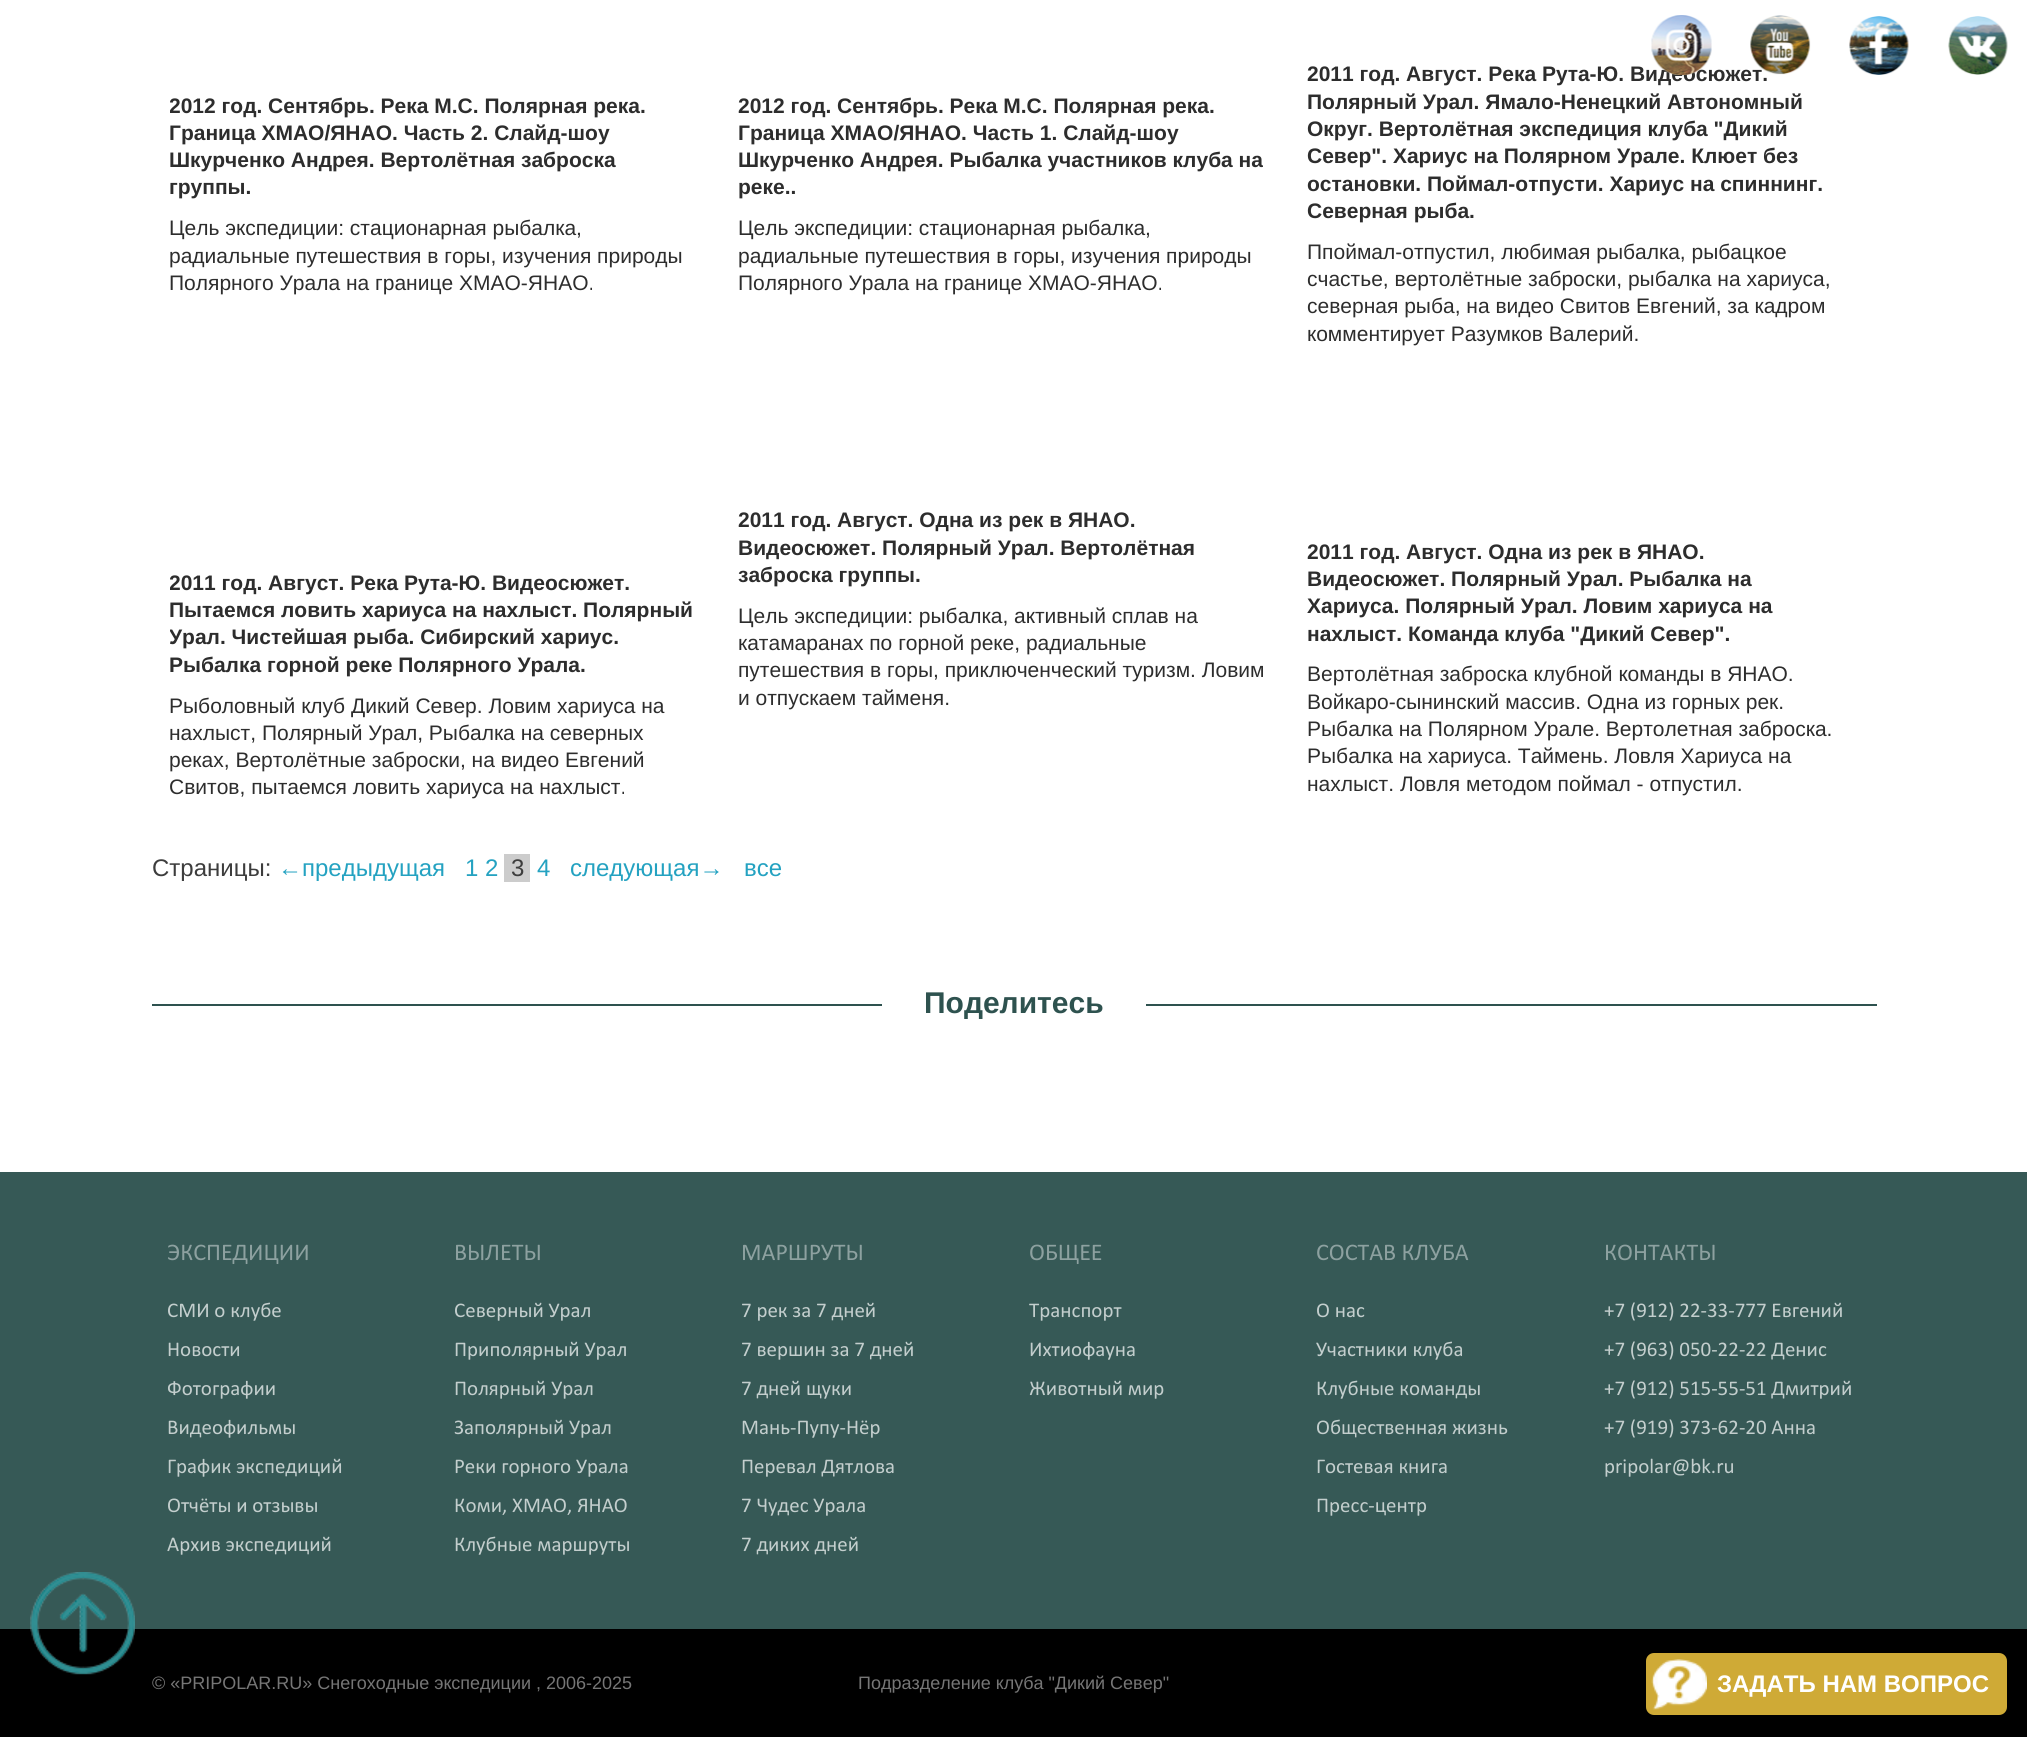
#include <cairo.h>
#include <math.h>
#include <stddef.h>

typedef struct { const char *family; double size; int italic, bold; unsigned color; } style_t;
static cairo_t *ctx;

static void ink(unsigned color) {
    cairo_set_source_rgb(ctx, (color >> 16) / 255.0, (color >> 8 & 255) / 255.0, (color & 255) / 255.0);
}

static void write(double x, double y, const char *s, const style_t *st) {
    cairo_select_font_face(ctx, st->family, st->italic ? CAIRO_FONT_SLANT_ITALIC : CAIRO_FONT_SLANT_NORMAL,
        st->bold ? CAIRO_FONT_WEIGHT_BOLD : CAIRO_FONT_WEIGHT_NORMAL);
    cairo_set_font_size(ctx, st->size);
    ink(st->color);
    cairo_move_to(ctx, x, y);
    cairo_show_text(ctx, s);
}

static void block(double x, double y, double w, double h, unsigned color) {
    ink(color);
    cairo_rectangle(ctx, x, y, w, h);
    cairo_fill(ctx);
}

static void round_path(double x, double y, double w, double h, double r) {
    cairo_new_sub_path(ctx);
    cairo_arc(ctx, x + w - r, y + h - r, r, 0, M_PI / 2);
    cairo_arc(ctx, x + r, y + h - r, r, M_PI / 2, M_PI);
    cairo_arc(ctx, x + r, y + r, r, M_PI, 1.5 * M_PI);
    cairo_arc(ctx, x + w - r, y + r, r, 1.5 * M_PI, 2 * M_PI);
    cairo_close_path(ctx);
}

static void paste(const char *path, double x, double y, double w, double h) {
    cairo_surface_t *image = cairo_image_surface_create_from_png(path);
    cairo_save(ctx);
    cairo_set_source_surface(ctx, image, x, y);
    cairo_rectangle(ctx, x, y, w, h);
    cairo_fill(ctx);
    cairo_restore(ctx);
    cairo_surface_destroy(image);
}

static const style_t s1 = {"Liberation Sans", 21, 0, 1, 0x2d2d2d};
static const style_t s2 = {"Liberation Sans", 21, 0, 0, 0x2d2d2d};
static const style_t s3 = {"Liberation Sans", 24, 0, 0, 0x3d3d3d};
static const style_t s4 = {"Liberation Sans", 24, 0, 0, 0x24a2c1};
static const style_t s5 = {"Liberation Sans", 30, 0, 1, 0x2e524f};
static const style_t s6 = {"Calibri", 24, 0, 0, 0x8da1a0};
static const style_t s7 = {"Calibri", 21, 0, 0, 0xc3cecd};
static const style_t s8 = {"Liberation Sans", 18, 0, 0, 0x767676};
static const style_t s9 = {"Liberation Sans", 24, 0, 1, 0xffffff};

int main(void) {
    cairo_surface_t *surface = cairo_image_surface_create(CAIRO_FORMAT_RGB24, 2027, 1737);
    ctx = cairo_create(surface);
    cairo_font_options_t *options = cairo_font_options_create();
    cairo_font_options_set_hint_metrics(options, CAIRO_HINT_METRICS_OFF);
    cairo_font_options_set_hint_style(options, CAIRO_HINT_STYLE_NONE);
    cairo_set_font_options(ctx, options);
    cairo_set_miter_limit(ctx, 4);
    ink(0xffffff);
    cairo_paint(ctx);
    block(0, 1172, 2027, 457, 0x365956);
    block(0, 1629, 2027, 108, 0x000000);
    paste("pic1.png", 30, 1572, 105, 103);
    write(1307, 81, "2011 год. Август. Река Рута-Ю. Видеосюжет.", &s1);
    paste("pic2.png", 1651, 15, 61, 60);
    paste("pic3.png", 1750, 15, 61, 60);
    paste("pic4.png", 1849, 16, 60, 59);
    paste("pic5.png", 1948, 16, 60, 59);
    cairo_save(ctx);
    cairo_rectangle(ctx, 170, 0, 534, 347);
    cairo_clip(ctx);
    write(169, 113, "2012 год. Сентябрь. Река М.С. Полярная река.", &s1);
    cairo_restore(ctx);
    write(169, 140, "Граница ХМАО/ЯНАО. Часть 2. Слайд-шоу", &s1);
    write(169, 167, "Шкурченко Андрея. Вертолётная заброска", &s1);
    write(169, 194, "группы.", &s1);
    write(169, 235, "Цель экспедиции: стационарная рыбалка,", &s2);
    write(169, 263, "радиальные путешествия в горы, изучения природы", &s2);
    write(169, 290, "Полярного Урала на границе ХМАО-ЯНАО.", &s2);
    write(738, 113, "2012 год. Сентябрь. Река М.С. Полярная река.", &s1);
    write(738, 140, "Граница ХМАО/ЯНАО. Часть 1. Слайд-шоу", &s1);
    write(738, 167, "Шкурченко Андрея. Рыбалка участников клуба на", &s1);
    write(738, 194, "реке..", &s1);
    write(738, 235, "Цель экспедиции: стационарная рыбалка,", &s2);
    write(738, 263, "радиальные путешествия в горы, изучения природы", &s2);
    write(738, 290, "Полярного Урала на границе ХМАО-ЯНАО.", &s2);
    write(1307, 109, "Полярный Урал. Ямало-Ненецкий Автономный", &s1);
    write(1307, 136, "Округ. Вертолётная экспедиция клуба \"Дикий", &s1);
    write(1307, 163, "Север\". Хариус на Полярном Урале. Клюет без", &s1);
    write(1307, 191, "остановки. Поймал-отпусти. Хариус на спиннинг.", &s1);
    write(1307, 218, "Северная рыба.", &s1);
    write(1307, 259, "Ппоймал-отпустил, любимая рыбалка, рыбацкое", &s2);
    write(1307, 286, "счастье, вертолётные заброски, рыбалка на хариуса,", &s2);
    write(1307, 313, "северная рыба, на видео Свитов Евгений, за кадром", &s2);
    write(1307, 341, "комментирует Разумков Валерий.", &s2);
    cairo_save(ctx);
    cairo_rectangle(ctx, 170, 399, 534, 402);
    cairo_clip(ctx);
    write(169, 590, "2011 год. Август. Река Рута-Ю. Видеосюжет.", &s1);
    cairo_restore(ctx);
    write(169, 617, "Пытаемся ловить хариуса на нахлыст. Полярный", &s1);
    cairo_save(ctx);
    cairo_rectangle(ctx, 170, 399, 534, 402);
    cairo_clip(ctx);
    write(169, 644, "Урал. Чистейшая рыба. Сибирский хариус.", &s1);
    cairo_restore(ctx);
    write(169, 672, "Рыбалка горной реке Полярного Урала.", &s1);
    write(169, 713, "Рыболовный клуб Дикий Север. Ловим хариуса на", &s2);
    write(169, 740, "нахлыст, Полярный Урал, Рыбалка на северных", &s2);
    write(169, 767, "реках, Вертолётные заброски, на видео Евгений", &s2);
    cairo_save(ctx);
    cairo_rectangle(ctx, 170, 399, 534, 402);
    cairo_clip(ctx);
    write(169, 794, "Свитов, пытаемся ловить хариуса на нахлыст.", &s2);
    cairo_restore(ctx);
    write(738, 527, "2011 год. Август. Одна из рек в ЯНАО.", &s1);
    write(738, 555, "Видеосюжет. Полярный Урал. Вертолётная", &s1);
    write(738, 582, "заброска группы.", &s1);
    write(738, 623, "Цель экспедиции: рыбалка, активный сплав на", &s2);
    write(738, 650, "катамаранах по горной реке, радиальные", &s2);
    write(738, 677, "путешествия в горы, приключенческий туризм. Ловим", &s2);
    write(738, 705, "и отпускаем тайменя.", &s2);
    write(1307, 559, "2011 год. Август. Одна из рек в ЯНАО.", &s1);
    write(1307, 586, "Видеосюжет. Полярный Урал. Рыбалка на", &s1);
    write(1307, 613, "Хариуса. Полярный Урал. Ловим хариуса на", &s1);
    write(1307, 641, "нахлыст. Команда клуба \"Дикий Север\".", &s1);
    write(1307, 681, "Вертолётная заброска клубной команды в ЯНАО.", &s2);
    write(1307, 709, "Войкаро-сынинский массив. Одна из горных рек.", &s2);
    write(1307, 736, "Рыбалка на Полярном Урале. Вертолетная заброска.", &s2);
    write(1307, 763, "Рыбалка на хариуса. Таймень. Ловля Хариуса на", &s2);
    write(1307, 791, "нахлыст. Ловля методом поймал - отпустил.", &s2);
    write(152, 876, "Страницы:", &s3);
    write(278, 876, "←предыдущая", &s4);
    write(465, 876, "1 2", &s4);
    block(504, 854, 26, 28, 0xcccccc);
    write(511, 876, "3", &s3);
    write(537, 876, "4", &s4);
    write(570, 876, "следующая→", &s4);
    write(744, 876, "все", &s4);
    block(152, 1004, 1725, 2, 0x2e524f);
    block(882, 1004, 264, 2, 0xffffff);
    write(924, 1013, "Поделитесь", &s5);
    write(167, 1260, "ЭКСПЕДИЦИИ", &s6);
    write(167, 1317, "СМИ о клубе", &s7);
    write(167, 1356, "Новости", &s7);
    write(167, 1395, "Фотографии", &s7);
    write(167, 1434, "Видеофильмы", &s7);
    write(167, 1473, "График экспедиций", &s7);
    write(167, 1512, "Отчёты и отзывы", &s7);
    write(167, 1551, "Архив экспедиций", &s7);
    write(454, 1260, "ВЫЛЕТЫ", &s6);
    write(454, 1317, "Северный Урал", &s7);
    write(454, 1356, "Приполярный Урал", &s7);
    write(454, 1395, "Полярный Урал", &s7);
    write(454, 1434, "Заполярный Урал", &s7);
    write(454, 1473, "Реки горного Урала", &s7);
    write(454, 1512, "Коми, ХМАО, ЯНАО", &s7);
    write(454, 1551, "Клубные маршруты", &s7);
    write(741, 1260, "МАРШРУТЫ", &s6);
    write(741, 1317, "7 рек за 7 дней", &s7);
    write(741, 1356, "7 вершин за 7 дней", &s7);
    write(741, 1395, "7 дней щуки", &s7);
    write(741, 1434, "Мань-Пупу-Нёр", &s7);
    write(741, 1473, "Перевал Дятлова", &s7);
    write(741, 1512, "7 Чудес Урала", &s7);
    write(741, 1551, "7 диких дней", &s7);
    write(1029, 1260, "ОБЩЕЕ", &s6);
    write(1029, 1317, "Транспорт", &s7);
    write(1029, 1356, "Ихтиофауна", &s7);
    write(1029, 1395, "Животный мир", &s7);
    write(1316, 1260, "СОСТАВ КЛУБА", &s6);
    write(1316, 1317, "О нас", &s7);
    write(1316, 1356, "Участники клуба", &s7);
    write(1316, 1395, "Клубные команды", &s7);
    write(1316, 1434, "Общественная жизнь", &s7);
    write(1316, 1473, "Гостевая книга", &s7);
    write(1316, 1512, "Пресс-центр", &s7);
    write(1604, 1260, "КОНТАКТЫ", &s6);
    write(1604, 1317, "+7 (912) 22-33-777 Евгений", &s7);
    write(1604, 1356, "+7 (963) 050-22-22 Денис", &s7);
    write(1604, 1395, "+7 (912) 515-55-51 Дмитрий", &s7);
    write(1604, 1434, "+7 (919) 373-62-20 Анна", &s7);
    write(1604, 1473, "pripolar@bk.ru", &s7);
    write(152, 1689, "© «PRIPOLAR.RU» Снегоходные экспедиции , 2006-2025", &s8);
    write(858, 1689, "Подразделение клуба \"Дикий Север\"", &s8);
    ink(0xcfaa36);
    round_path(1646, 1653, 361, 62, 8);
    cairo_fill(ctx);
    paste("pic6.png", 1651, 1659, 56, 51);
    write(1717, 1692, "ЗАДАТЬ НАМ ВОПРОС", &s9);
    cairo_surface_write_to_png(surface, "screenshot.png");
    cairo_font_options_destroy(options);
    cairo_destroy(ctx);
    cairo_surface_destroy(surface);
    return 0;
}
